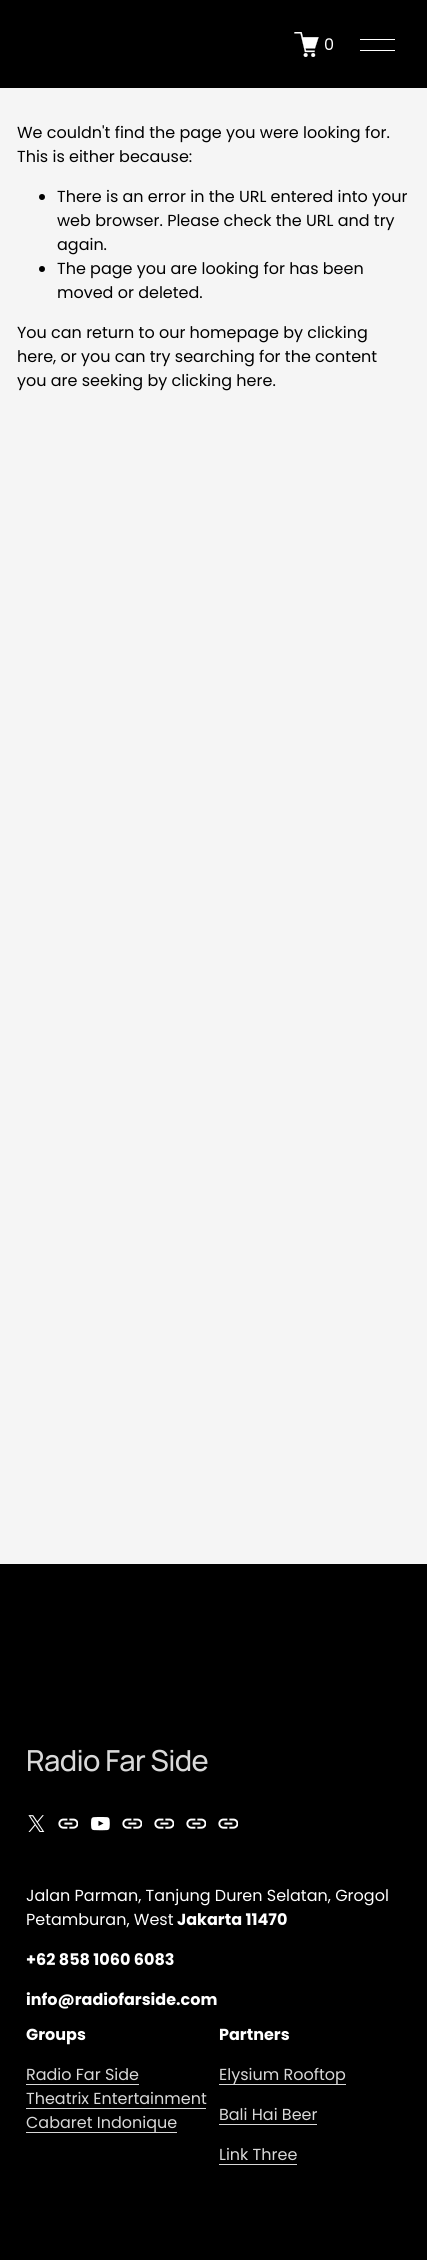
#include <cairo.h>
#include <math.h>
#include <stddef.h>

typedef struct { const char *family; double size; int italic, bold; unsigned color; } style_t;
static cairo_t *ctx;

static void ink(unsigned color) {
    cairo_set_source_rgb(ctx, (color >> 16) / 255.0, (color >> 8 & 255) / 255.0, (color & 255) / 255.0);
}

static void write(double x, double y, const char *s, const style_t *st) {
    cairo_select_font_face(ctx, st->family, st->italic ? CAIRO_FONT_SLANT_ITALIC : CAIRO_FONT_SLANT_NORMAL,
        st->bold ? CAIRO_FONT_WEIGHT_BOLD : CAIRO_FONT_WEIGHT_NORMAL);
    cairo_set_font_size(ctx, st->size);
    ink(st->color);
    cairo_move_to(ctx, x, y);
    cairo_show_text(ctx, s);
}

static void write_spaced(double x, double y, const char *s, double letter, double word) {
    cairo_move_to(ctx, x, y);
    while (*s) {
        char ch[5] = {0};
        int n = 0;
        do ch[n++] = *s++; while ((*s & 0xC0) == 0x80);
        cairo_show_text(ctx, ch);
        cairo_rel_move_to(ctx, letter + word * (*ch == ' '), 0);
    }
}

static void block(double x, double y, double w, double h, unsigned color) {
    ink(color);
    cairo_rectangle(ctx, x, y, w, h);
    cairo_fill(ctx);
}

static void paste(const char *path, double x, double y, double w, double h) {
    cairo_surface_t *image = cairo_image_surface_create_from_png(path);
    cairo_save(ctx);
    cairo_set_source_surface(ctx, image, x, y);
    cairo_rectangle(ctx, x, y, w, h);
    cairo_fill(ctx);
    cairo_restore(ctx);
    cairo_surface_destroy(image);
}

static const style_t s1 = {"Poppins", 16, 0, 0, 0xffffff};
static const style_t s2 = {"Poppins", 16, 0, 0, 0x000000};
static const style_t s3 = {"Poppins", 16, 0, 1, 0xffffff};
static const style_t s4 = {"Poppins", 16, 0, 0, 0xd9d9d9};

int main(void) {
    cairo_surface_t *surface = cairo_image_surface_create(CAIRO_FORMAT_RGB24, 427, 2260);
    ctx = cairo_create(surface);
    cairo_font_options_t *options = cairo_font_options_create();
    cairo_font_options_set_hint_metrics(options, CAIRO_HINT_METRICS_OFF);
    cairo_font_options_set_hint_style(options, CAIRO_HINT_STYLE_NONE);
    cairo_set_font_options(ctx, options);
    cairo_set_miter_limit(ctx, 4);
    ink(0xf5f5f5);
    cairo_paint(ctx);
    block(0, 0, 427, 88, 0x000000);
    paste("pic1.png", 294, 32, 25, 25);
    write(324, 50, "0", &s1);
    block(360, 39, 35, 1, 0xffffff);
    block(360, 50, 35, 1, 0xffffff);
    write(17, 138, "We couldn't find the page you were looking for.", &s2);
    write(17, 162, "This is either because:", &s2);
    cairo_new_path(ctx);
    cairo_arc(ctx, 42, 197, 3, 0, 2 * M_PI);
    cairo_fill(ctx);
    write(57, 202, "There is an error in the URL entered into your", &s2);
    write(57, 226, "web browser. Please check the URL and try", &s2);
    write(57, 250, "again.", &s2);
    cairo_new_path(ctx);
    cairo_arc(ctx, 42, 269, 3, 0, 2 * M_PI);
    cairo_fill(ctx);
    write(57, 274, "The page you are looking for has been", &s2);
    write(57, 298, "moved or deleted.", &s2);
    write(17, 338, "You can return to our homepage by clicking", &s2);
    write(17, 362, "here, or you can try searching for the content", &s2);
    write(17, 386, "you are seeking by clicking here.", &s2);
    block(0, 1564, 427, 696, 0x000000);
    cairo_select_font_face(ctx, "Manrope Medium", CAIRO_FONT_SLANT_NORMAL, CAIRO_FONT_WEIGHT_NORMAL);
    cairo_set_font_size(ctx, 29);
    ink(0xd9d9d9);
    write_spaced(26, 1771, "Radio Far Side", -0.6, 0);
    paste("pic2.png", 28, 1815, 17, 17);
    paste("pic3.png", 58, 1818, 20, 11);
    paste("pic4.png", 91, 1817, 19, 14);
    paste("pic3.png", 122, 1818, 20, 11);
    paste("pic3.png", 154, 1818, 20, 11);
    paste("pic3.png", 186, 1818, 20, 11);
    paste("pic3.png", 218, 1818, 20, 11);
    write(26, 1901, "Jalan Parman, Tanjung Duren Selatan, Grogol", &s1);
    write(26, 1925, "Petamburan, West", &s1);
    write(177, 1925, "Jakarta 11470", &s3);
    write(26, 1965, "+62 858 1060 6083", &s3);
    write(26, 2005, "info@radiofarside.com", &s3);
    write(26, 2040, "Groups", &s3);
    write(26, 2080, "Radio Far Side", &s4);
    block(26, 2084, 113, 1, 0xd9d9d9);
    write(26, 2104, "Theatrix Entertainment", &s4);
    block(26, 2108, 180, 1, 0xd9d9d9);
    block(26, 2132, 151, 1, 0xd9d9d9);
    write(26, 2128, "Cabaret Indonique", &s4);
    write(219, 2040, "Partners", &s3);
    block(219, 2084, 127, 1, 0xd9d9d9);
    write(219, 2080, "Elysium Rooftop", &s4);
    write(219, 2120, "Bali Hai Beer", &s4);
    block(219, 2124, 98, 1, 0xd9d9d9);
    write(219, 2160, "Link Three", &s4);
    block(219, 2164, 78, 1, 0xd9d9d9);
    cairo_surface_write_to_png(surface, "screenshot.png");
    cairo_font_options_destroy(options);
    cairo_destroy(ctx);
    cairo_surface_destroy(surface);
    return 0;
}
